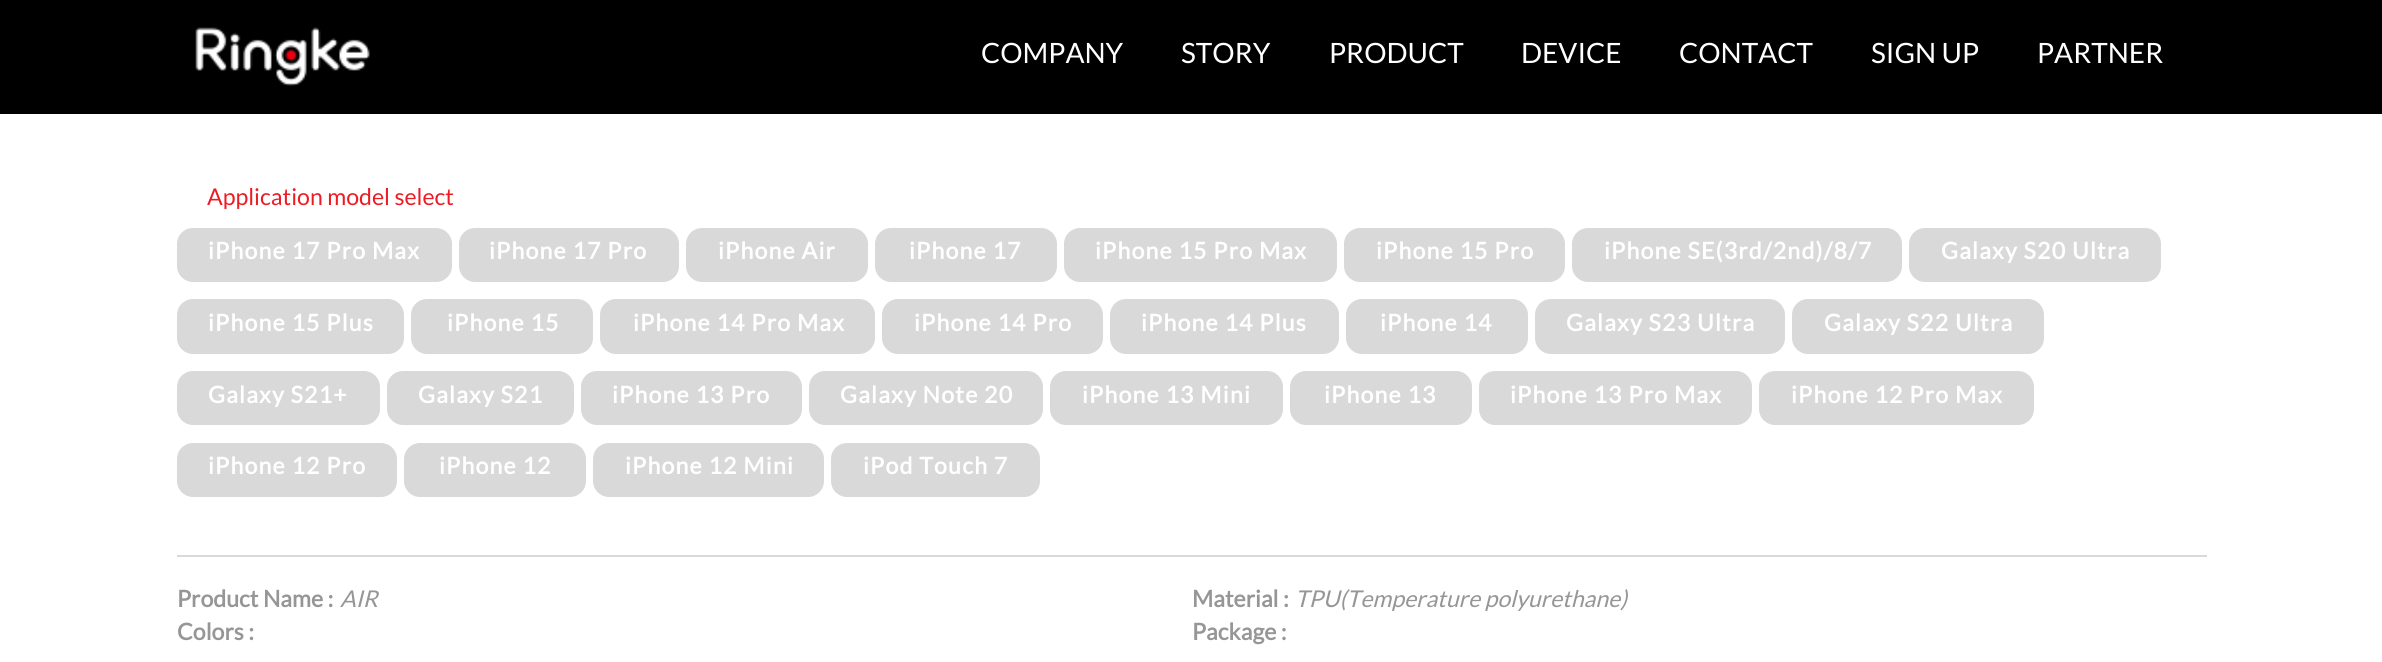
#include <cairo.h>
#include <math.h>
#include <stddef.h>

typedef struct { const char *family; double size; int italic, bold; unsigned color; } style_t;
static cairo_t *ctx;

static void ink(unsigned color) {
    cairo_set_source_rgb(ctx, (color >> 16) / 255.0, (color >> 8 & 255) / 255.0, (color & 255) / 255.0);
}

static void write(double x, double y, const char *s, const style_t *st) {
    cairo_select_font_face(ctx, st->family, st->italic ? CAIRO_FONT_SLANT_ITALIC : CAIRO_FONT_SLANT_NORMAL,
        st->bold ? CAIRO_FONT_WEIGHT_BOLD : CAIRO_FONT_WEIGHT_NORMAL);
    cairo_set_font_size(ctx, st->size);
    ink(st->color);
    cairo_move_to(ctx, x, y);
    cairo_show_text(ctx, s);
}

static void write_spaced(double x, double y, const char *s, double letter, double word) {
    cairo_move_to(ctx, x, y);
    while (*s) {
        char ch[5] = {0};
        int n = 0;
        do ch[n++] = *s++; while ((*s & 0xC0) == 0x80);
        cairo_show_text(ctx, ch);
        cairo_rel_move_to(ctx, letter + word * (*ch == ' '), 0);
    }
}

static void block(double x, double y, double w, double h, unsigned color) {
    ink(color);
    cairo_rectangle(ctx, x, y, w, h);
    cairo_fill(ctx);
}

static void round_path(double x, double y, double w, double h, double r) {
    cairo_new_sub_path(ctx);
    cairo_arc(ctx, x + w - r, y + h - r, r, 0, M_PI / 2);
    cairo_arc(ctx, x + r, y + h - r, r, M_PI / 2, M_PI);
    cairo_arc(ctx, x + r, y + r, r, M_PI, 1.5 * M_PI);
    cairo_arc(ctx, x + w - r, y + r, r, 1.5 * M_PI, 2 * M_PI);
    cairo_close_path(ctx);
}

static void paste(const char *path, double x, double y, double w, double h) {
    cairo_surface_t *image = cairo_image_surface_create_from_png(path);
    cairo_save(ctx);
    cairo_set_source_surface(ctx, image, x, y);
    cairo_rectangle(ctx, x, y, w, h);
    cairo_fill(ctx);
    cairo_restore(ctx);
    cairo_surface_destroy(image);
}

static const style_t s1 = {"Lato", 28, 0, 0, 0xffffff};
static const style_t s2 = {"Lato", 23.1, 0, 0, 0xed1c24};
static const style_t s3 = {"Lato", 23.1, 0, 1, 0x969696};
static const style_t s4 = {"Lato", 23.1, 1, 0, 0x969696};

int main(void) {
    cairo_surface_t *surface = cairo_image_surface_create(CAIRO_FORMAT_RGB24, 2382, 662);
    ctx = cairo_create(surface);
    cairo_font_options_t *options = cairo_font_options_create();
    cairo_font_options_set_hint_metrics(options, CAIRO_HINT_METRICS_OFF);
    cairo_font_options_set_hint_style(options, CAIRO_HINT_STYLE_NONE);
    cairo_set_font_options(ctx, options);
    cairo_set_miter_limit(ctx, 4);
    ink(0xffffff);
    cairo_paint(ctx);
    block(0, 0, 2382, 114, 0x000000);
    paste("pic1.png", 195, 27, 175, 59);
    write(981, 63, "COMPANY", &s1);
    write(1181, 63, "STORY", &s1);
    write(1329, 63, "PRODUCT", &s1);
    write(1521, 63, "DEVICE", &s1);
    write(1679, 63, "CONTACT", &s1);
    write(1871, 63, "SIGN UP", &s1);
    write(2037, 63, "PARTNER", &s1);
    write(207, 205, "Application model select", &s2);
    ink(0xd9d9d9);
    round_path(177, 228, 275, 54, 16);
    cairo_fill(ctx);
    cairo_select_font_face(ctx, "Lato", CAIRO_FONT_SLANT_NORMAL, CAIRO_FONT_WEIGHT_BOLD);
    ink(0xffffff);
    write_spaced(208, 259, "iPhone 17 Pro Max", 1.2, 0);
    ink(0xd9d9d9);
    round_path(459, 228, 220, 54, 16);
    cairo_fill(ctx);
    ink(0xffffff);
    write_spaced(489, 259, "iPhone 17 Pro", 1.2, 0);
    ink(0xd9d9d9);
    round_path(686, 228, 182, 54, 16);
    cairo_fill(ctx);
    ink(0xffffff);
    write_spaced(718, 259, "iPhone Air", 1.2, 0);
    ink(0xd9d9d9);
    round_path(875, 228, 182, 54, 16);
    cairo_fill(ctx);
    ink(0xffffff);
    write_spaced(909, 259, "iPhone 17", 1.2, 0);
    ink(0xd9d9d9);
    round_path(1064, 228, 273, 54, 16);
    cairo_fill(ctx);
    ink(0xffffff);
    write_spaced(1095, 259, "iPhone 15 Pro Max", 1.2, 0);
    ink(0xd9d9d9);
    round_path(1344, 228, 221, 54, 16);
    cairo_fill(ctx);
    ink(0xffffff);
    write_spaced(1376, 259, "iPhone 15 Pro", 1.2, 0);
    ink(0xd9d9d9);
    round_path(1572, 228, 330, 54, 16);
    cairo_fill(ctx);
    ink(0xffffff);
    write_spaced(1604, 259, "iPhone SE(3rd/2nd)/8/7", 1.2, 0);
    ink(0xd9d9d9);
    round_path(1909, 228, 252, 54, 16);
    cairo_fill(ctx);
    ink(0xffffff);
    write_spaced(1941, 259, "Galaxy S20 Ultra", 1.2, 0);
    ink(0xd9d9d9);
    round_path(177, 299, 227, 55, 16);
    cairo_fill(ctx);
    ink(0xffffff);
    write_spaced(208, 331, "iPhone 15 Plus", 1.2, 0);
    ink(0xd9d9d9);
    round_path(411, 299, 182, 55, 16);
    cairo_fill(ctx);
    ink(0xffffff);
    write_spaced(447, 331, "iPhone 15", 1.2, 0);
    ink(0xd9d9d9);
    round_path(600, 299, 275, 55, 16);
    cairo_fill(ctx);
    ink(0xffffff);
    write_spaced(633, 331, "iPhone 14 Pro Max", 1.2, 0);
    ink(0xd9d9d9);
    round_path(882, 299, 221, 55, 16);
    cairo_fill(ctx);
    ink(0xffffff);
    write_spaced(914, 331, "iPhone 14 Pro", 1.2, 0);
    ink(0xd9d9d9);
    round_path(1110, 299, 229, 55, 16);
    cairo_fill(ctx);
    ink(0xffffff);
    write_spaced(1141, 331, "iPhone 14 Plus", 1.2, 0);
    ink(0xd9d9d9);
    round_path(1346, 299, 182, 55, 16);
    cairo_fill(ctx);
    ink(0xffffff);
    write_spaced(1380, 331, "iPhone 14", 1.2, 0);
    ink(0xd9d9d9);
    round_path(1535, 299, 250, 55, 16);
    cairo_fill(ctx);
    ink(0xffffff);
    write_spaced(1566, 331, "Galaxy S23 Ultra", 1.2, 0);
    ink(0xd9d9d9);
    round_path(1792, 299, 252, 55, 16);
    cairo_fill(ctx);
    ink(0xffffff);
    write_spaced(1824, 331, "Galaxy S22 Ultra", 1.2, 0);
    ink(0xd9d9d9);
    round_path(177, 371, 203, 54, 16);
    cairo_fill(ctx);
    ink(0xffffff);
    write_spaced(208, 403, "Galaxy S21+", 1.2, 0);
    ink(0xd9d9d9);
    round_path(387, 371, 187, 54, 16);
    cairo_fill(ctx);
    ink(0xffffff);
    write_spaced(418, 403, "Galaxy S21", 1.2, 0);
    ink(0xd9d9d9);
    round_path(581, 371, 221, 54, 16);
    cairo_fill(ctx);
    ink(0xffffff);
    write_spaced(612, 403, "iPhone 13 Pro", 1.2, 0);
    ink(0xd9d9d9);
    round_path(809, 371, 234, 54, 16);
    cairo_fill(ctx);
    ink(0xffffff);
    write_spaced(840, 403, "Galaxy Note 20", 1.2, 0);
    ink(0xd9d9d9);
    round_path(1050, 371, 233, 54, 16);
    cairo_fill(ctx);
    ink(0xffffff);
    write_spaced(1082, 403, "iPhone 13 Mini", 1.2, 0);
    ink(0xd9d9d9);
    round_path(1290, 371, 182, 54, 16);
    cairo_fill(ctx);
    ink(0xffffff);
    write_spaced(1324, 403, "iPhone 13", 1.2, 0);
    ink(0xd9d9d9);
    round_path(1479, 371, 273, 54, 16);
    cairo_fill(ctx);
    ink(0xffffff);
    write_spaced(1510, 403, "iPhone 13 Pro Max", 1.2, 0);
    ink(0xd9d9d9);
    round_path(1759, 371, 275, 54, 16);
    cairo_fill(ctx);
    ink(0xffffff);
    write_spaced(1791, 403, "iPhone 12 Pro Max", 1.2, 0);
    ink(0xd9d9d9);
    round_path(177, 443, 220, 54, 16);
    cairo_fill(ctx);
    ink(0xffffff);
    write_spaced(208, 474, "iPhone 12 Pro", 1.2, 0);
    ink(0xd9d9d9);
    round_path(404, 443, 182, 54, 16);
    cairo_fill(ctx);
    ink(0xffffff);
    write_spaced(439, 474, "iPhone 12", 1.2, 0);
    ink(0xd9d9d9);
    round_path(593, 443, 231, 54, 16);
    cairo_fill(ctx);
    ink(0xffffff);
    write_spaced(625, 474, "iPhone 12 Mini", 1.2, 0);
    ink(0xd9d9d9);
    round_path(831, 443, 209, 54, 16);
    cairo_fill(ctx);
    ink(0xffffff);
    write_spaced(863, 474, "iPod Touch 7", 1.2, 0);
    block(177, 555, 2030, 2, 0xd9d9d9);
    write(177, 607, "Product Name :", &s3);
    write(340, 607, "AIR", &s4);
    write(177, 640, "Colors :", &s3);
    write(1192, 607, "Material :", &s3);
    write(1295, 607, "TPU(Temperature polyurethane)", &s4);
    write(1192, 640, "Package :", &s3);
    cairo_surface_write_to_png(surface, "screenshot.png");
    cairo_font_options_destroy(options);
    cairo_destroy(ctx);
    cairo_surface_destroy(surface);
    return 0;
}
